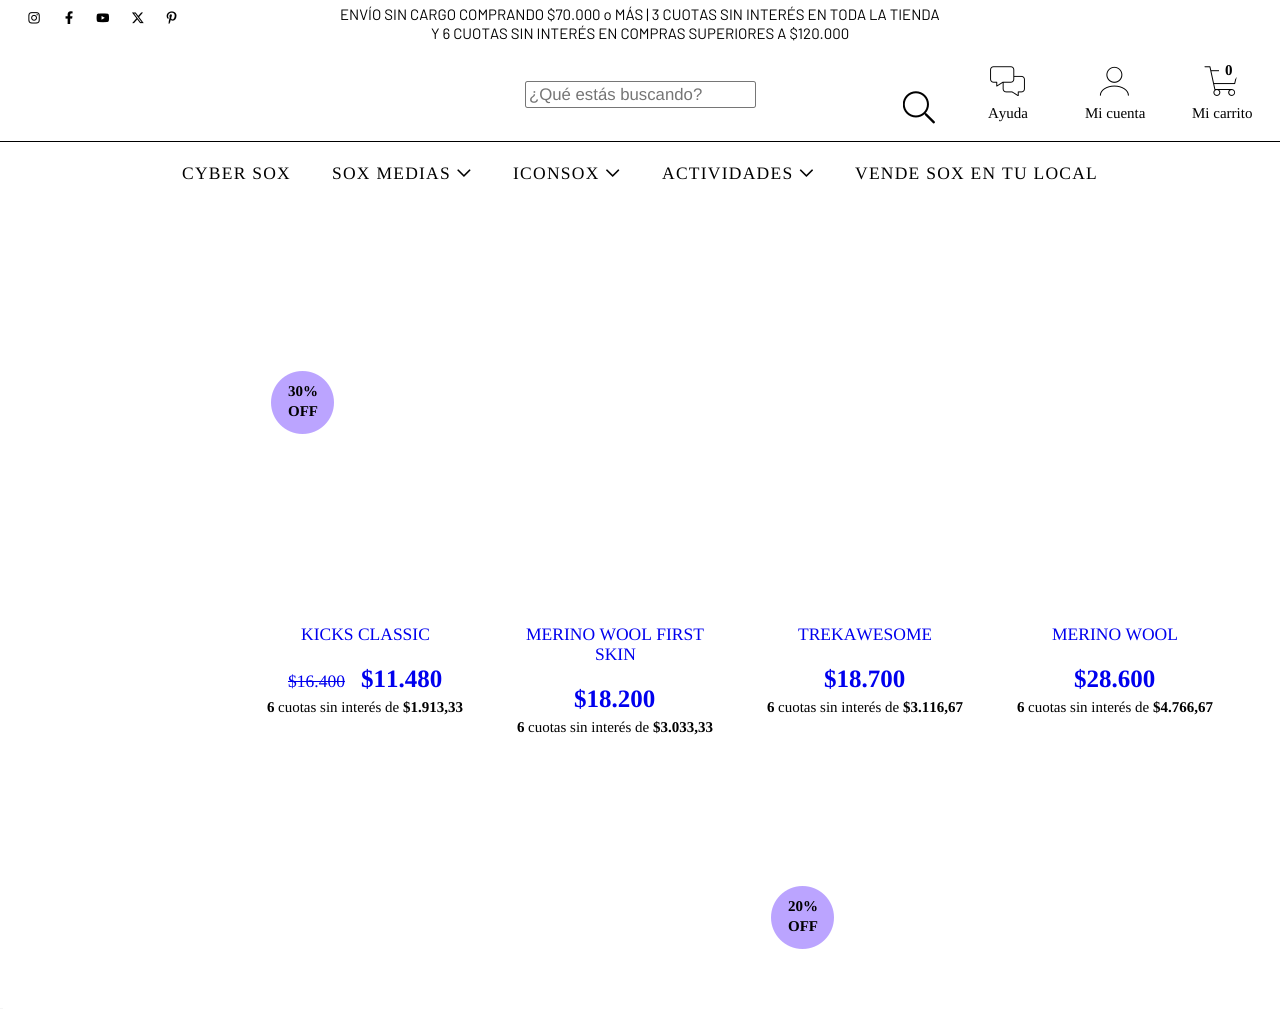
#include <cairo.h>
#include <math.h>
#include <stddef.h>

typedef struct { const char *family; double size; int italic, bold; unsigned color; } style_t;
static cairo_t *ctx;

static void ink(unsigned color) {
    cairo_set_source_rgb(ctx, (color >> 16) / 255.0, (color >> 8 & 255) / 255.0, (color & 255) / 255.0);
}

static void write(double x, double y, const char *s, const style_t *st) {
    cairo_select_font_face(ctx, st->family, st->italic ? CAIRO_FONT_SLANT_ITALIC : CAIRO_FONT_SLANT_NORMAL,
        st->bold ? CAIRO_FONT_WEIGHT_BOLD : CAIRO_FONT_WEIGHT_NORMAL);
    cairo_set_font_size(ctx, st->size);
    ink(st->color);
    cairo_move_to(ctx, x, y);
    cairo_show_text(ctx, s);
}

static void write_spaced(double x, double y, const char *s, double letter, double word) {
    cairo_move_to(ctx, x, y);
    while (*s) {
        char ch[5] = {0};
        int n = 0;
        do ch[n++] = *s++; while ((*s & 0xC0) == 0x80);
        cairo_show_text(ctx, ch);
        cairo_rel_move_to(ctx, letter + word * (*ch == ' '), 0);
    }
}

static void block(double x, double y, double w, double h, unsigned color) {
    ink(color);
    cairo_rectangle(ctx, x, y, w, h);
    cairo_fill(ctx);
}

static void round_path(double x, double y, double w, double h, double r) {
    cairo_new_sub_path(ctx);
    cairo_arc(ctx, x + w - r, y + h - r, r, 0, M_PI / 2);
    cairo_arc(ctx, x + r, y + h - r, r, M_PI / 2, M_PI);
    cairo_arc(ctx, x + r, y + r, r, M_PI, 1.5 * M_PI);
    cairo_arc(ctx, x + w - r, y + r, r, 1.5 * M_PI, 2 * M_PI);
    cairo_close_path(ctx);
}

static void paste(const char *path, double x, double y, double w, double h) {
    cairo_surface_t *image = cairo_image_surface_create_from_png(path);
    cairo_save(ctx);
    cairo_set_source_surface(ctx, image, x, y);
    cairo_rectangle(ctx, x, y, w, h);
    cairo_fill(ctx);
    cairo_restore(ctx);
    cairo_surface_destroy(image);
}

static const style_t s1 = {"Barlow", 15, 0, 0, 0x000000};
static const style_t s2 = {"Liberation Sans", 16.75, 0, 0, 0x757575};
static const style_t s3 = {"Liberation Serif", 15, 0, 0, 0x000000};
static const style_t s4 = {"Liberation Serif", 15, 0, 1, 0x000000};
static const style_t s5 = {"Liberation Serif", 17.5, 0, 0, 0x0000ee};
static const style_t s6 = {"Liberation Serif", 25, 0, 1, 0x0000ee};

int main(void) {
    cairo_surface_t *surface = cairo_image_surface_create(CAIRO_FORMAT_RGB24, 1280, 1009);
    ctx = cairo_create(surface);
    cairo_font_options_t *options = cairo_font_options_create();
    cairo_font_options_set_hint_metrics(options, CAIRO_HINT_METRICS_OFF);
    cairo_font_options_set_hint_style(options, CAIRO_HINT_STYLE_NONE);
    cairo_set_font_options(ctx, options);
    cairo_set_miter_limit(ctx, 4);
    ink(0xffffff);
    cairo_paint(ctx);
    paste("pic1.png", 28, 12, 12, 12);
    paste("pic2.png", 65, 11, 8, 13);
    paste("pic3.png", 96, 13, 13, 10);
    paste("pic4.png", 132, 12, 12, 12);
    paste("pic5.png", 166, 11, 11, 13);
    write(340, 20, "ENVÍO SIN CARGO COMPRANDO $70.000 o MÁS | 3 CUOTAS SIN INTERÉS EN TODA LA TIENDA", &s1);
    write(431, 39, "Y 6 CUOTAS SIN INTERÉS EN COMPRAS SUPERIORES A $120.000", &s1);
    round_path(525.5, 81.5, 230, 26, 2);
    ink(0x767676);
    cairo_set_line_width(ctx, 1);
    cairo_stroke(ctx);
    write(529, 100, "¿Qué estás buscando?", &s2);
    paste("pic6.png", 903, 91, 32, 33);
    paste("pic7.png", 990, 66, 35, 30);
    write(988, 118, "Ayuda", &s3);
    paste("pic8.png", 1099, 66, 30, 30);
    write(1085, 118, "Mi cuenta", &s3);
    paste("pic9.png", 1204, 66, 35, 30);
    ink(0xffffff);
    round_path(1219, 60, 20, 21, 10);
    cairo_fill(ctx);
    write(1225, 75, "0", &s4);
    write(1192, 118, "Mi carrito", &s3);
    block(0, 141, 1280, 1, 0x000000);
    cairo_set_font_size(ctx, 17.5);
    write_spaced(182, 179, "CYBER SOX", 1.25, 0);
    write_spaced(332, 179, "SOX MEDIAS", 1.25, 0);
    paste("pic10.png", 457, 169, 14, 8);
    write_spaced(513, 179, "ICONSOX", 1.25, 0);
    paste("pic11.png", 606, 169, 14, 8);
    write_spaced(662, 179, "ACTIVIDADES", 1.25, 0);
    paste("pic12.png", 799, 169, 14, 8);
    write_spaced(855, 179, "VENDE SOX EN TU LOCAL", 1.25, 0);
    ink(0xbba4ff);
    cairo_new_path(ctx);
    cairo_arc(ctx, 302.5, 402.5, 31.5, 0, 2 * M_PI);
    cairo_fill(ctx);
    write(288, 396, "30%", &s4);
    write(288, 416, "OFF", &s4);
    write(301, 640, "KICKS CLASSIC", &s5);
    write(288, 687, "$16.400", &s5);
    block(288, 681, 57, 1, 0x0000ee);
    write(361, 687, "$11.480", &s6);
    write(267, 712, "6", &s4);
    write(278, 712, "cuotas sin interés de", &s3);
    write(403, 712, "$1.913,33", &s4);
    write(526, 640, "MERINO WOOL FIRST", &s5);
    write(595, 660, "SKIN", &s5);
    write(574, 707, "$18.200", &s6);
    write(517, 732, "6", &s4);
    write(528, 732, "cuotas sin interés de", &s3);
    write(653, 732, "$3.033,33", &s4);
    write(798, 640, "TREKAWESOME", &s5);
    write(824, 687, "$18.700", &s6);
    write(767, 712, "6", &s4);
    write(778, 712, "cuotas sin interés de", &s3);
    write(903, 712, "$3.116,67", &s4);
    write(1052, 640, "MERINO WOOL", &s5);
    write(1074, 687, "$28.600", &s6);
    write(1017, 712, "6", &s4);
    write(1028, 712, "cuotas sin interés de", &s3);
    write(1153, 712, "$4.766,67", &s4);
    ink(0xbba4ff);
    cairo_new_path(ctx);
    cairo_arc(ctx, 802.5, 917.5, 31.5, 0, 2 * M_PI);
    cairo_fill(ctx);
    write(788, 911, "20%", &s4);
    write(788, 931, "OFF", &s4);
    block(0, 1008, 3, 1, 0xf5f5f5);
    cairo_surface_write_to_png(surface, "screenshot.png");
    cairo_font_options_destroy(options);
    cairo_destroy(ctx);
    cairo_surface_destroy(surface);
    return 0;
}
